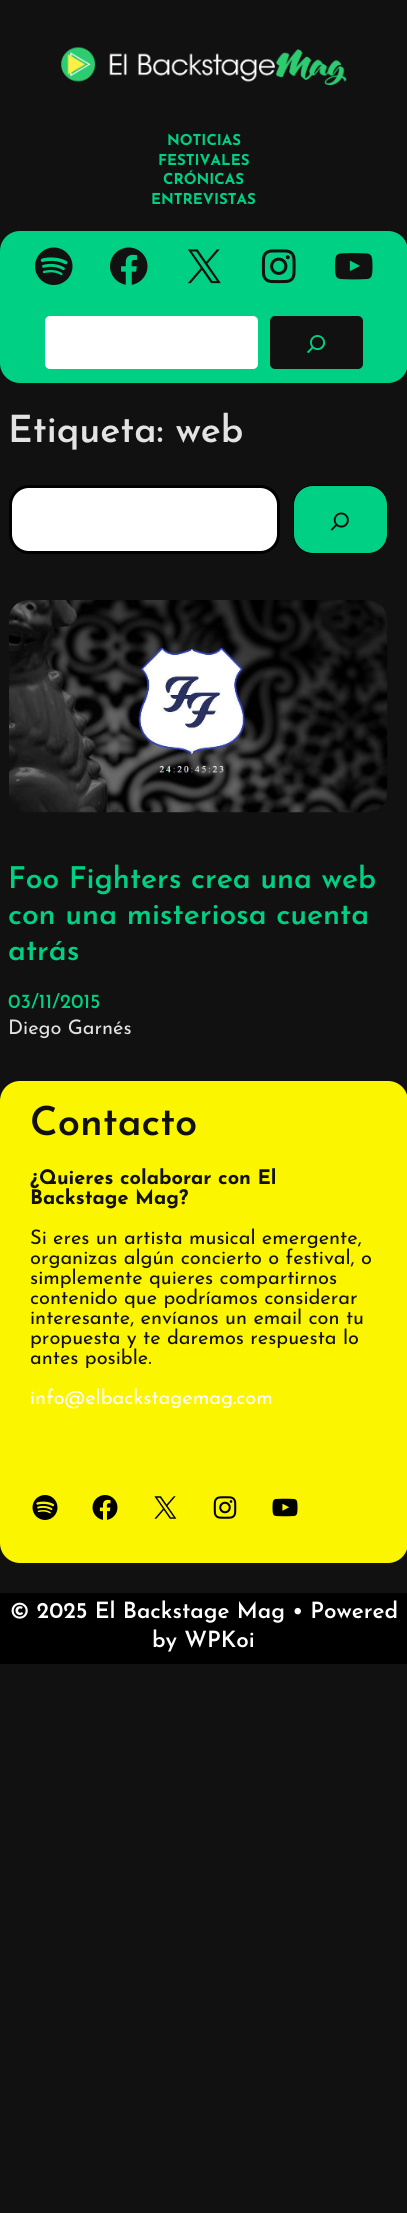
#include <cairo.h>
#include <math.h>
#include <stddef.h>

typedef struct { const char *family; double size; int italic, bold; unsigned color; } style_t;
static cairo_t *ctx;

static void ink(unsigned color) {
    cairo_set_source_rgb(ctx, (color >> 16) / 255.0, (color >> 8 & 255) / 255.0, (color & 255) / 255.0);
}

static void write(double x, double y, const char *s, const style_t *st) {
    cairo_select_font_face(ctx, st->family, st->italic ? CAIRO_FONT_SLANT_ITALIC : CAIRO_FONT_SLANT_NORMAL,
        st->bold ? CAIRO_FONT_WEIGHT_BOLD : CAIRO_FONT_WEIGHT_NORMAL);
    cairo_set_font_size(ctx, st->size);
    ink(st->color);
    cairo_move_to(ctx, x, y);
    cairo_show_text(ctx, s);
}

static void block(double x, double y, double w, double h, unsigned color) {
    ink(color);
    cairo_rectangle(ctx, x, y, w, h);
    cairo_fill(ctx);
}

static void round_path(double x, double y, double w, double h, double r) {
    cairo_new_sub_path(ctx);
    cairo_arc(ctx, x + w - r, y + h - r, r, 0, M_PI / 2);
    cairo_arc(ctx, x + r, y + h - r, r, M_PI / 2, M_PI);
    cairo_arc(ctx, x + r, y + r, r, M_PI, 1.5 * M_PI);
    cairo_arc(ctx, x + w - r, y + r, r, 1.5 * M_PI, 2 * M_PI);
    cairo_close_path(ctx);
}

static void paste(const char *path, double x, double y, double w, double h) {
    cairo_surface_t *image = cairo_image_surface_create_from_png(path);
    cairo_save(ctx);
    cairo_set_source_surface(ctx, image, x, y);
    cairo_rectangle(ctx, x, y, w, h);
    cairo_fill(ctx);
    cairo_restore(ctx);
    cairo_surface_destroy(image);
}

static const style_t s1 = {"Josefin Sans", 15, 0, 1, 0x00d084};
static const style_t s2 = {"Josefin Sans SemiBold", 37.5, 0, 0, 0xe3e3e3};
static const style_t s3 = {"Josefin Sans SemiBold", 30, 0, 0, 0x00d084};
static const style_t s4 = {"Josefin Sans Medium", 20, 0, 0, 0x00d084};
static const style_t s5 = {"Josefin Sans", 20, 0, 0, 0xe3e3e3};
static const style_t s6 = {"Josefin Sans SemiBold", 40, 0, 0, 0x111111};
static const style_t s7 = {"Josefin Sans", 20, 0, 1, 0x111111};
static const style_t s8 = {"Josefin Sans", 20, 0, 0, 0x111111};
static const style_t s9 = {"Josefin Sans", 20, 0, 0, 0xffffff};
static const style_t s10 = {"Josefin Sans SemiBold", 22.5, 0, 0, 0xffffff};

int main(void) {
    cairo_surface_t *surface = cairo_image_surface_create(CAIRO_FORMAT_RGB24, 407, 2213);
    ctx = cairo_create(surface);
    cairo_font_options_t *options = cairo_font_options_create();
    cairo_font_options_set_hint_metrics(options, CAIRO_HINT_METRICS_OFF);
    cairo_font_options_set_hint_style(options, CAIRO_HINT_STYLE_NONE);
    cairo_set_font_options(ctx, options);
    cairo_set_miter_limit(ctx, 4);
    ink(0x111111);
    cairo_paint(ctx);
    paste("pic1.png", 61, 47, 286, 38);
    write(167, 145, "NOTICIAS", &s1);
    write(158, 165, "FESTIVALES", &s1);
    write(163, 184, "CRÓNICAS", &s1);
    write(151, 204, "ENTREVISTAS", &s1);
    round_path(0, 231, 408, 152, 20);
    cairo_fill(ctx);
    paste("pic2.png", 35, 247, 38, 38);
    paste("pic3.png", 110, 247, 38, 38);
    paste("pic4.png", 188, 249, 33, 35);
    paste("pic5.png", 261, 249, 35, 35);
    paste("pic6.png", 335, 253, 38, 27);
    ink(0xffffff);
    round_path(45, 316, 213, 53, 5);
    cairo_fill(ctx);
    ink(0x111111);
    round_path(270, 316, 93, 53, 5);
    cairo_fill(ctx);
    paste("pic7.png", 307, 335, 19, 19);
    write(8, 442, "Etiqueta: web", &s2);
    ink(0xffffff);
    round_path(10.5, 486.5, 268, 66, 18.5);
    cairo_fill_preserve(ctx);
    ink(0x000000);
    cairo_set_line_width(ctx, 3);
    cairo_stroke(ctx);
    ink(0x00d084);
    round_path(293.5, 485.5, 94, 68, 19.5);
    cairo_fill_preserve(ctx);
    ink(0x000000);
    cairo_set_line_width(ctx, 1);
    cairo_stroke(ctx);
    paste("pic8.png", 330, 512, 19, 19);
    paste("pic9.png", 9, 600, 379, 213);
    write(8, 888, "Foo Fighters crea una web", &s3);
    write(8, 924, "con una misteriosa cuenta", &s3);
    write(8, 960, "atrás", &s3);
    write(8, 1008, "03/11/2015", &s4);
    write(8, 1034, "Diego Garnés", &s5);
    ink(0xfcf500);
    round_path(0, 1081, 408, 482, 20);
    cairo_fill(ctx);
    write(30, 1135, "Contacto", &s6);
    write(30, 1184, "¿Quieres colaborar con El", &s7);
    write(30, 1204, "Backstage Mag?", &s7);
    write(30, 1244, "Si eres un artista musical emergente,", &s8);
    write(30, 1264, "organizas algún concierto o festival, o", &s8);
    write(30, 1284, "simplemente quieres compartirnos", &s8);
    write(30, 1304, "contenido que podríamos considerar", &s8);
    write(30, 1324, "interesante, envíanos un email con tu", &s8);
    write(30, 1344, "propuesta y te daremos respuesta lo", &s8);
    write(30, 1364, "antes posible.", &s8);
    write(30, 1404, "info@elbackstagemag.com", &s9);
    paste("pic10.png", 32, 1495, 26, 25);
    paste("pic11.png", 92, 1495, 26, 25);
    paste("pic12.png", 154, 1496, 23, 23);
    paste("pic13.png", 213, 1496, 24, 23);
    paste("pic14.png", 272, 1498, 26, 19);
    block(0, 1593, 407, 71, 0x000000);
    write(10, 1618, "© 2025 El Backstage Mag • Powered", &s10);
    write(152, 1647, "by WPKoi", &s10);
    cairo_surface_write_to_png(surface, "screenshot.png");
    cairo_font_options_destroy(options);
    cairo_destroy(ctx);
    cairo_surface_destroy(surface);
    return 0;
}
